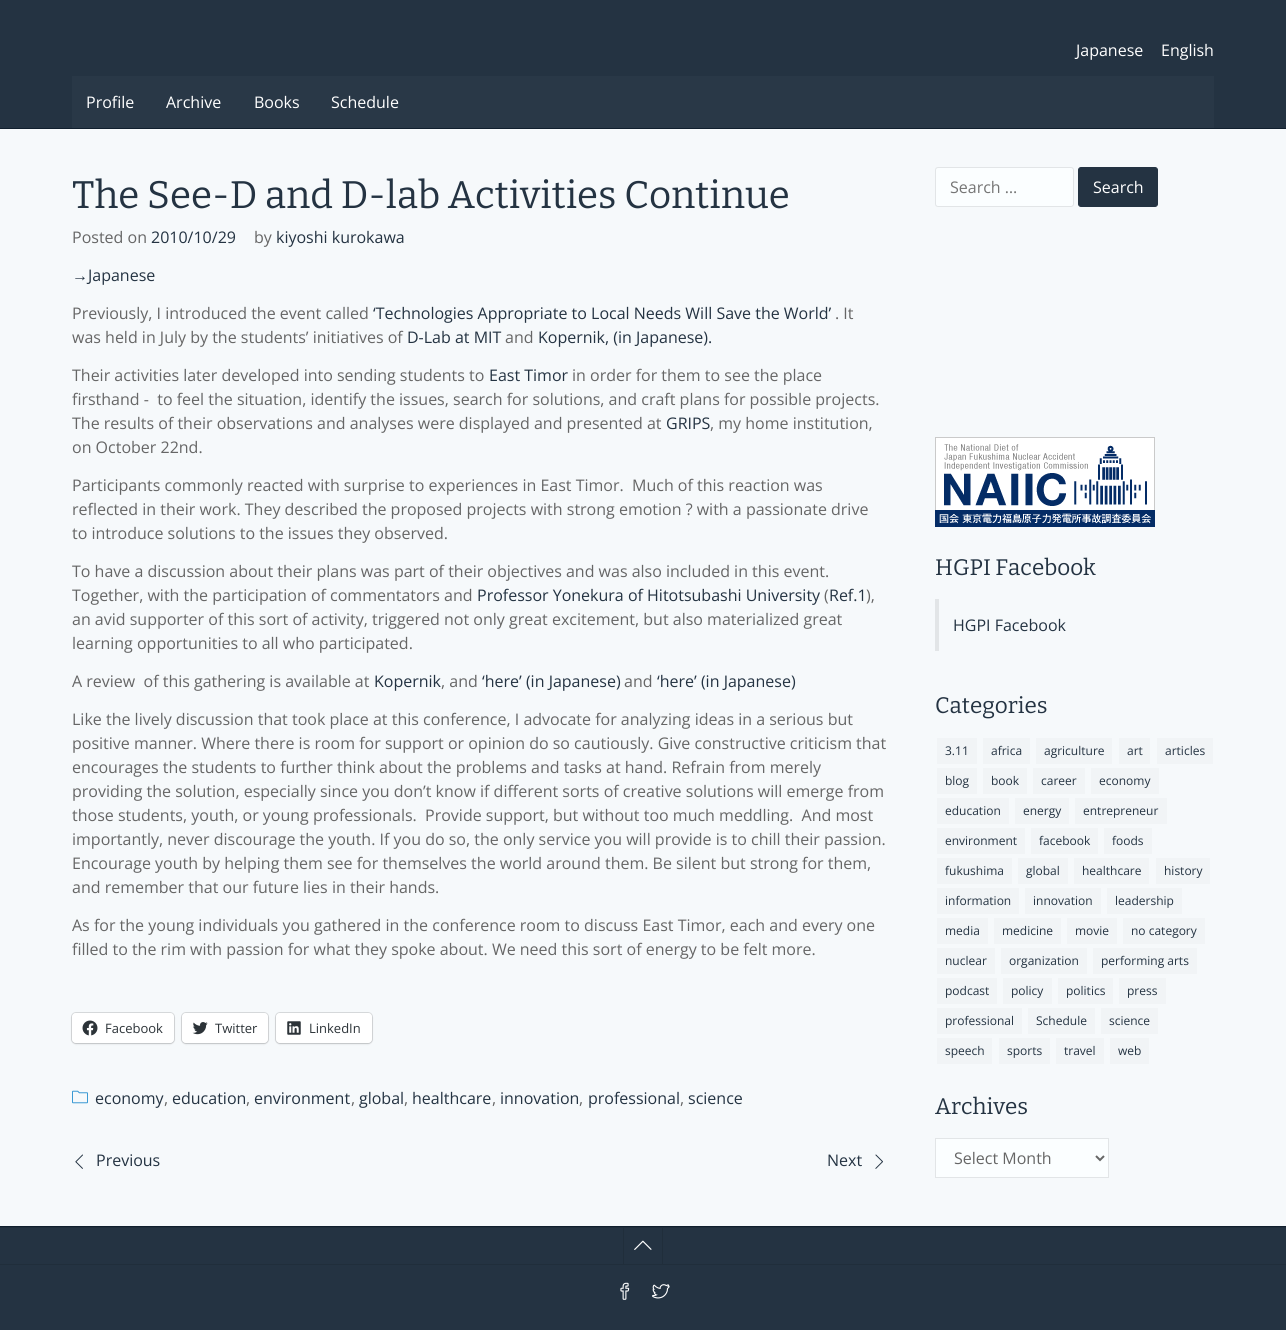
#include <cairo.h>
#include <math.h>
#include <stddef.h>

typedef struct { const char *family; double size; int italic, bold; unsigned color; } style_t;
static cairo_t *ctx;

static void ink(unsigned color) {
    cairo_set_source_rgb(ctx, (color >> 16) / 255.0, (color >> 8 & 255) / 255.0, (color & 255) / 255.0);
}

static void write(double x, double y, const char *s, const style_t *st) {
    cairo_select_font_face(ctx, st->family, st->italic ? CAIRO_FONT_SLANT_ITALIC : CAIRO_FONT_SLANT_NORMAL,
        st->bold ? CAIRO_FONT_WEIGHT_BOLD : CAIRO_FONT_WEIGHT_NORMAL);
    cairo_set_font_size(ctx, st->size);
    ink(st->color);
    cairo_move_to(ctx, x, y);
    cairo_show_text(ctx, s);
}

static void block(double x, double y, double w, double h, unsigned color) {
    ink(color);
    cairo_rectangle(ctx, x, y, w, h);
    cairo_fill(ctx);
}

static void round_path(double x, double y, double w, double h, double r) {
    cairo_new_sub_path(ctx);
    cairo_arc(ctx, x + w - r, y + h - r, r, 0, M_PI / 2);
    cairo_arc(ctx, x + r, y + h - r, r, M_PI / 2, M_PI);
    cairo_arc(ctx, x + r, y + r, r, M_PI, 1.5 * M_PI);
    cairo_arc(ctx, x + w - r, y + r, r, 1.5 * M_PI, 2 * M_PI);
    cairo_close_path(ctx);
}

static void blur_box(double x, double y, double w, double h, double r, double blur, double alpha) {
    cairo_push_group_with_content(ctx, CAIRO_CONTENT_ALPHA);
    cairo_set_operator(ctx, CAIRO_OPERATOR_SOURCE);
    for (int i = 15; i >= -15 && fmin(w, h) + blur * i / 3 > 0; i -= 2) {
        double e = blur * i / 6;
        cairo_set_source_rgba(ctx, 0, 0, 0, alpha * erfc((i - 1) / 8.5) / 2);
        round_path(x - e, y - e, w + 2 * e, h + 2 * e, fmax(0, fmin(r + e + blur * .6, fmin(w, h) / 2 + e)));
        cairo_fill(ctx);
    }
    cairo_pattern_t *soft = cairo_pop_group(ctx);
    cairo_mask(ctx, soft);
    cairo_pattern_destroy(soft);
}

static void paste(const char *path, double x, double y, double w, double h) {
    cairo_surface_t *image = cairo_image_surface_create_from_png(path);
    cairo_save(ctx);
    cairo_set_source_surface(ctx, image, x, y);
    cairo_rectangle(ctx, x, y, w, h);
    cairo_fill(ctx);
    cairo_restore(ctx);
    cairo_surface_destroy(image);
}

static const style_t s1 = {"Open Sans", 16, 0, 0, 0xffffff};
static const style_t s2 = {"Bitter Thin", 38.4, 0, 0, 0x243342};
static const style_t s3 = {"Open Sans", 16, 0, 0, 0x666666};
static const style_t s4 = {"Open Sans", 16, 0, 0, 0x243342};
static const style_t s5 = {"Liberation Sans", 16, 0, 0, 0x243342};
static const style_t s6 = {"Open Sans", 13, 0, 0, 0x2c3338};
static const style_t s7 = {"Open Sans", 16, 0, 0, 0x757575};
static const style_t s8 = {"Bitter Thin", 22.5, 0, 0, 0x243342};
static const style_t s9 = {"Open Sans", 12, 0, 0, 0x243342};

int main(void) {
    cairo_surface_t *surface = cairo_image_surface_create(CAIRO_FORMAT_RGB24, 1286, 1330);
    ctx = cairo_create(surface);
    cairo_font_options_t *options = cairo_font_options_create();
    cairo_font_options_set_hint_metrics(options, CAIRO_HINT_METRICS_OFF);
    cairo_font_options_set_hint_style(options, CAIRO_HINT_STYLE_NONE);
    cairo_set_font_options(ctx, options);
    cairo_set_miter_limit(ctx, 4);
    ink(0xf6f9fb);
    cairo_paint(ctx);
    block(0, 0, 1286, 128, 0x243342);
    block(0, 128, 1286, 1, 0x101f2e);
    write(1076, 56, "Japanese", &s1);
    write(1161, 56, "English", &s1);
    block(72, 76, 1142, 52, 0x293847);
    write(86, 108, "Profile", &s1);
    write(166, 108, "Archive", &s1);
    write(254, 108, "Books", &s1);
    write(331, 108, "Schedule", &s1);
    write(72, 208, "The See-D and D-lab Activities Continue", &s2);
    write(72, 243, "Posted on", &s3);
    write(151, 243, "2010/10/29", &s4);
    write(254, 243, "by", &s3);
    write(276, 243, "kiyoshi kurokawa", &s4);
    write(72, 281, "→", &s5);
    write(88, 281, "Japanese", &s4);
    write(72, 319, "Previously, I introduced the event called", &s3);
    write(373, 319, "‘Technologies Appropriate to Local Needs Will Save the World’", &s4);
    write(835, 319, ". It", &s3);
    write(72, 343, "was held in July by the students’ initiatives of", &s3);
    write(407, 343, "D-Lab at MIT", &s4);
    write(505, 343, "and", &s3);
    write(538, 343, "Kopernik, (in Japanese).", &s4);
    write(72, 381, "Their activities later developed into sending students to", &s3);
    write(489, 381, "East Timor", &s4);
    write(572, 381, "in order for them to see the place", &s3);
    write(72, 405, "firsthand -  to feel the situation, identify the issues, search for solutions, and craft plans for possible projects.", &s3);
    write(72, 429, "The results of their observations and analyses were displayed and presented at", &s3);
    write(666, 429, "GRIPS", &s4);
    write(710, 429, ", my home institution,", &s3);
    write(72, 453, "on October 22nd.", &s3);
    write(72, 491, "Participants commonly reacted with surprise to experiences in East Timor.  Much of this reaction was", &s3);
    write(72, 515, "reflected in their work. They described the proposed projects with strong emotion ? with a passionate drive", &s3);
    write(72, 539, "to introduce solutions to the issues they observed.", &s3);
    write(72, 577, "To have a discussion about their plans was part of their objectives and was also included in this event.", &s3);
    write(72, 601, "Together, with the participation of commentators and", &s3);
    write(477, 601, "Professor Yonekura of Hitotsubashi University", &s4);
    write(824, 601, "(", &s3);
    write(829, 601, "Ref.1", &s4);
    write(866, 601, "),", &s3);
    write(72, 625, "an avid supporter of this sort of activity, triggered not only great excitement, but also materialized great", &s3);
    write(72, 649, "learning opportunities to all who participated.", &s3);
    write(72, 687, "A review  of this gathering is available at", &s3);
    write(374, 687, "Kopernik", &s4);
    write(441, 687, ", and", &s3);
    write(482, 687, "‘here’ (in Japanese)", &s4);
    write(624, 687, "and", &s3);
    write(657, 687, "‘here’ (in Japanese)", &s4);
    write(72, 725, "Like the lively discussion that took place at this conference, I advocate for analyzing ideas in a serious but", &s3);
    write(72, 749, "positive manner. Where there is room for support or opinion do so cautiously. Give constructive criticism that", &s3);
    write(72, 773, "encourages the students to further think about the problems and tasks at hand. Refrain from merely", &s3);
    write(72, 797, "providing the solution, especially since you don’t know if different sorts of creative solutions will emerge from", &s3);
    write(72, 821, "those students, youth, or young professionals.  Provide support, but without too much meddling.  And most", &s3);
    write(72, 845, "importantly, never discourage the youth. If you do so, the only service you will provide is to chill their passion.", &s3);
    write(72, 869, "Encourage youth by helping them see for themselves the world around them. Be silent but strong for them,", &s3);
    write(72, 893, "and remember that our future lies in their hands.", &s3);
    write(72, 931, "As for the young individuals you gathered in the conference room to discuss East Timor, each and every one", &s3);
    write(72, 955, "filled to the rim with passion for what they spoke about. We need this sort of energy to be felt more.", &s3);
    round_path(71.5, 1012.5, 103, 31, 4.5);
    ink(0xd8dbdd);
    cairo_set_line_width(ctx, 1);
    cairo_stroke(ctx);
    ink(0x000000);
    blur_box(72, 1014, 102, 30, 4, 1, 0.12);
    ink(0xffffff);
    round_path(72, 1013, 102, 30, 4);
    cairo_fill(ctx);
    paste("pic1.png", 82, 1020, 16, 16);
    write(105, 1033, "Facebook", &s6);
    round_path(181.5, 1012.5, 87, 31, 4.5);
    ink(0xd8dbdd);
    cairo_stroke(ctx);
    ink(0x000000);
    blur_box(182, 1014, 86, 30, 4, 1, 0.12);
    ink(0xffffff);
    round_path(182, 1013, 86, 30, 4);
    cairo_fill(ctx);
    paste("pic2.png", 192, 1022, 16, 13);
    write(215, 1033, "Twitter", &s6);
    round_path(275.5, 1012.5, 97, 31, 4.5);
    ink(0xd8dbdd);
    cairo_stroke(ctx);
    ink(0x000000);
    blur_box(276, 1014, 96, 30, 4, 1, 0.12);
    ink(0xffffff);
    round_path(276, 1013, 96, 30, 4);
    cairo_fill(ctx);
    paste("pic3.png", 287, 1021, 14, 14);
    write(309, 1033, "LinkedIn", &s6);
    paste("pic4.png", 72, 1090, 16, 14);
    write(95, 1104, "economy", &s4);
    write(164, 1104, ",", &s3);
    write(172, 1104, "education", &s4);
    write(246, 1104, ",", &s3);
    write(254, 1104, "environment", &s4);
    write(351, 1104, ",", &s3);
    write(359, 1104, "global", &s4);
    write(404, 1104, ",", &s3);
    write(412, 1104, "healthcare", &s4);
    write(492, 1104, ",", &s3);
    write(500, 1104, "innovation", &s4);
    write(579, 1104, ",", &s3);
    write(588, 1104, "professional", &s4);
    write(680, 1104, ",", &s3);
    write(688, 1104, "science", &s4);
    paste("pic5.png", 75, 1154, 8, 15);
    write(96, 1166, "Previous", &s4);
    write(827, 1166, "Next", &s4);
    paste("pic6.png", 875, 1154, 8, 15);
    ink(0xfbfeff);
    round_path(935.5, 167.5, 138, 39, 2.5);
    cairo_fill_preserve(ctx);
    ink(0xe2e5e7);
    cairo_stroke(ctx);
    write(950, 193, "Search …", &s7);
    ink(0x243342);
    round_path(1078.5, 167.5, 79, 39, 2.5);
    cairo_fill_preserve(ctx);
    cairo_stroke(ctx);
    write(1093, 193, "Search", &s1);
    paste("pic7.png", 935, 437, 220, 90);
    write(935, 575, "HGPI Facebook", &s8);
    block(935, 599, 4, 52, 0xe2e5e7);
    write(953, 631, "HGPI Facebook", &s4);
    write(935, 713, "Categories", &s8);
    block(937, 738, 40, 26, 0xf1f4f6);
    write(945, 755, "3.11", &s9);
    block(983, 738, 47, 26, 0xf1f4f6);
    write(991, 755, "africa", &s9);
    block(1036, 738, 76, 26, 0xf1f4f6);
    write(1044, 755, "agriculture", &s9);
    block(1119, 738, 31, 26, 0xf1f4f6);
    write(1127, 755, "art", &s9);
    block(1157, 738, 56, 26, 0xf1f4f6);
    write(1165, 755, "articles", &s9);
    block(937, 768, 40, 26, 0xf1f4f6);
    write(945, 785, "blog", &s9);
    block(983, 768, 44, 26, 0xf1f4f6);
    write(991, 785, "book", &s9);
    block(1033, 768, 52, 26, 0xf1f4f6);
    write(1041, 785, "career", &s9);
    block(1091, 768, 68, 26, 0xf1f4f6);
    write(1099, 785, "economy", &s9);
    block(937, 798, 72, 26, 0xf1f4f6);
    write(945, 815, "education", &s9);
    block(1015, 798, 54, 26, 0xf1f4f6);
    write(1023, 815, "energy", &s9);
    block(1075, 798, 92, 26, 0xf1f4f6);
    write(1083, 815, "entrepreneur", &s9);
    block(937, 828, 88, 26, 0xf1f4f6);
    write(945, 845, "environment", &s9);
    block(1031, 828, 67, 26, 0xf1f4f6);
    write(1039, 845, "facebook", &s9);
    block(1104, 828, 48, 26, 0xf1f4f6);
    write(1112, 845, "foods", &s9);
    block(937, 858, 75, 26, 0xf1f4f6);
    write(945, 875, "fukushima", &s9);
    block(1018, 858, 50, 26, 0xf1f4f6);
    write(1026, 875, "global", &s9);
    block(1074, 858, 75, 26, 0xf1f4f6);
    write(1082, 875, "healthcare", &s9);
    block(1156, 858, 54, 26, 0xf1f4f6);
    write(1164, 875, "history", &s9);
    block(937, 888, 82, 26, 0xf1f4f6);
    write(945, 905, "information", &s9);
    block(1025, 888, 76, 26, 0xf1f4f6);
    write(1033, 905, "innovation", &s9);
    block(1107, 888, 75, 26, 0xf1f4f6);
    write(1115, 905, "leadership", &s9);
    block(937, 918, 51, 26, 0xf1f4f6);
    write(945, 935, "media", &s9);
    block(994, 918, 67, 26, 0xf1f4f6);
    write(1002, 935, "medicine", &s9);
    block(1067, 918, 50, 26, 0xf1f4f6);
    write(1075, 935, "movie", &s9);
    block(1123, 918, 82, 26, 0xf1f4f6);
    write(1131, 935, "no category", &s9);
    block(937, 948, 58, 26, 0xf1f4f6);
    write(945, 965, "nuclear", &s9);
    block(1001, 948, 86, 26, 0xf1f4f6);
    write(1009, 965, "organization", &s9);
    block(1093, 948, 104, 26, 0xf1f4f6);
    write(1101, 965, "performing arts", &s9);
    block(937, 978, 60, 26, 0xf1f4f6);
    write(945, 995, "podcast", &s9);
    block(1003, 978, 49, 26, 0xf1f4f6);
    write(1011, 995, "policy", &s9);
    block(1058, 978, 55, 26, 0xf1f4f6);
    write(1066, 995, "politics", &s9);
    block(1119, 978, 47, 26, 0xf1f4f6);
    write(1127, 995, "press", &s9);
    block(937, 1008, 85, 26, 0xf1f4f6);
    write(945, 1025, "professional", &s9);
    block(1028, 1008, 67, 26, 0xf1f4f6);
    write(1036, 1025, "Schedule", &s9);
    block(1101, 1008, 57, 26, 0xf1f4f6);
    write(1109, 1025, "science", &s9);
    block(937, 1038, 55, 26, 0xf1f4f6);
    write(945, 1055, "speech", &s9);
    block(999, 1038, 51, 26, 0xf1f4f6);
    write(1007, 1055, "sports", &s9);
    block(1056, 1038, 48, 26, 0xf1f4f6);
    write(1064, 1055, "travel", &s9);
    block(1110, 1038, 39, 26, 0xf1f4f6);
    write(1118, 1055, "web", &s9);
    write(935, 1114, "Archives", &s8);
    ink(0xfbfeff);
    cairo_rectangle(ctx, 935.5, 1138.5, 173, 39);
    cairo_fill_preserve(ctx);
    ink(0xe2e5e7);
    cairo_stroke(ctx);
    cairo_new_path(ctx);
    cairo_move_to(ctx, 1096, 1156);
    cairo_line_to(ctx, 1100, 1160);
    cairo_line_to(ctx, 1104, 1156);
    ink(0x666666);
    cairo_set_line_width(ctx, 2);
    cairo_stroke(ctx);
    write(954, 1164, "Select Month", &s3);
    block(0, 1228, 1286, 102, 0x243342);
    block(0, 1226, 1286, 1, 0x101f2e);
    block(0, 1227, 1286, 1, 0x202e3b);
    block(0, 1264, 1286, 1, 0x202e3b);
    block(662, 1228, 1, 36, 0x202e3b);
    block(623, 1228, 1, 36, 0x202e3b);
    paste("pic8.png", 634, 1240, 18, 10);
    paste("pic9.png", 620, 1282, 10, 18);
    paste("pic10.png", 652, 1284, 18, 15);
    cairo_surface_write_to_png(surface, "screenshot.png");
    cairo_font_options_destroy(options);
    cairo_destroy(ctx);
    cairo_surface_destroy(surface);
    return 0;
}
